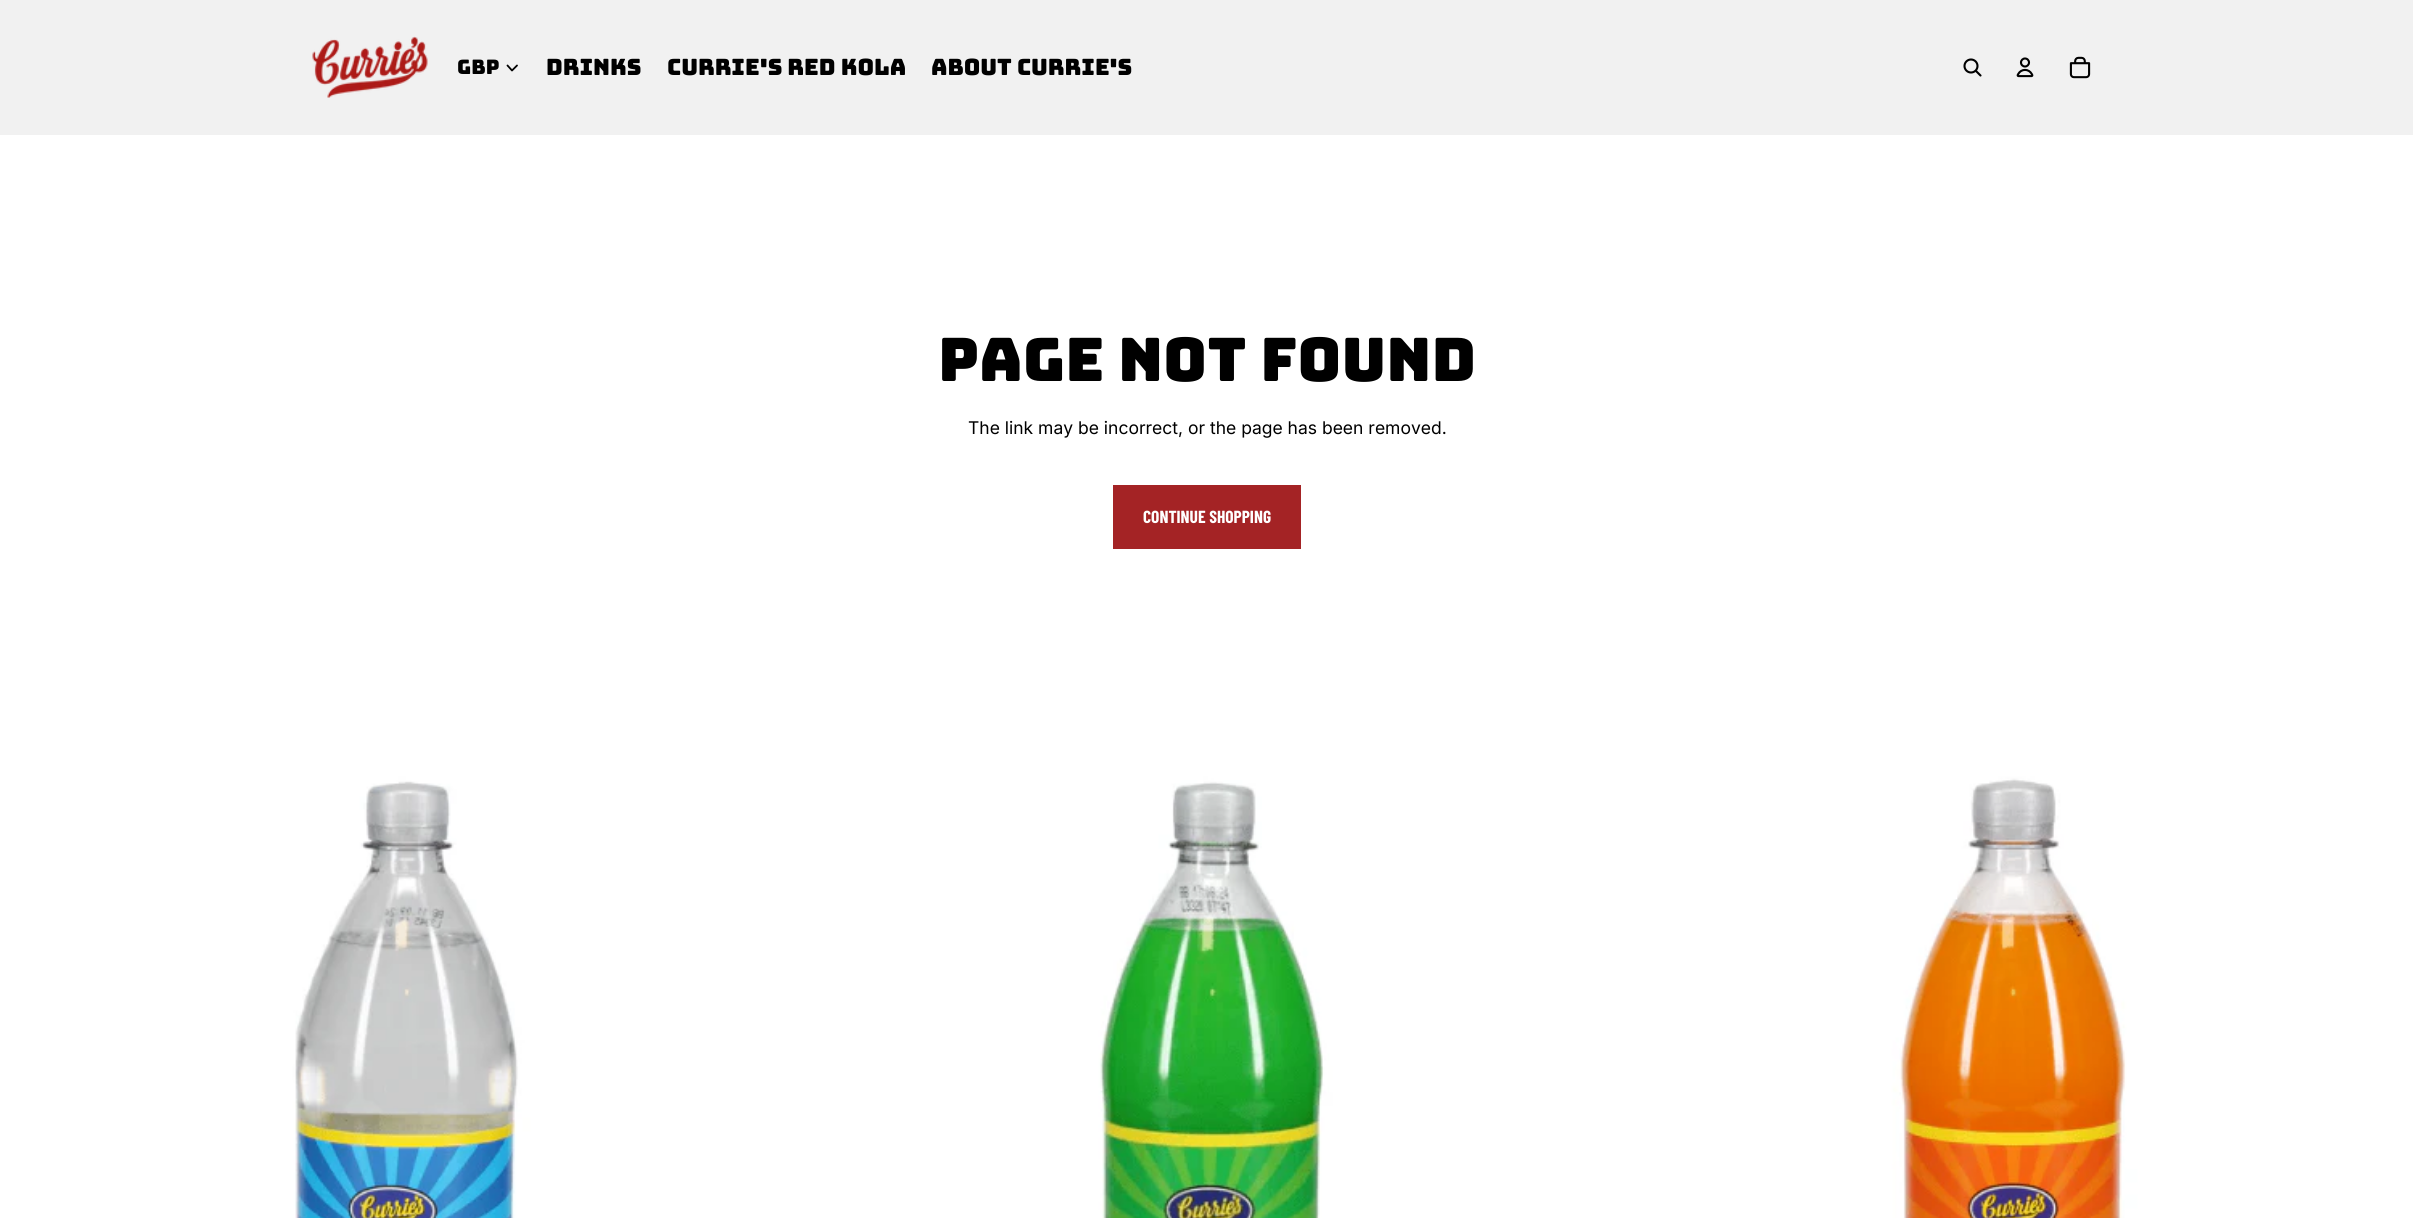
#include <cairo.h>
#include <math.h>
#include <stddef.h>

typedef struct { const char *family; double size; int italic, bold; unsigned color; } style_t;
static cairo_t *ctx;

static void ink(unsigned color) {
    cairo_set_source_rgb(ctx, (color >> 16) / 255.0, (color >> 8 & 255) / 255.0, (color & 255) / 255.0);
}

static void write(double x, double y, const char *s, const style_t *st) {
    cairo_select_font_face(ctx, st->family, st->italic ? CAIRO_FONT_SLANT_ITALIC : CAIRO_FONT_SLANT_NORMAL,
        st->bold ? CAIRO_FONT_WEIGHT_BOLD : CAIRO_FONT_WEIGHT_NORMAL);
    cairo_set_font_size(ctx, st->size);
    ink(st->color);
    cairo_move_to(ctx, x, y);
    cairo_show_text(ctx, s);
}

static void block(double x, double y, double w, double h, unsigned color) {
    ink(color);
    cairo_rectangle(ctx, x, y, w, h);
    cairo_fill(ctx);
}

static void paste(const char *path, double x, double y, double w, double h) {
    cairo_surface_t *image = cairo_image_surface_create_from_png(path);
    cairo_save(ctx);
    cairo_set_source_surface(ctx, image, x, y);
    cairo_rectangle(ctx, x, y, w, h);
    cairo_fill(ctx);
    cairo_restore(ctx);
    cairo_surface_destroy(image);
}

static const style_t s1 = {"Bungee", 20, 0, 0, 0x000000};
static const style_t s2 = {"Bungee", 22.5, 0, 0, 0x000000};
static const style_t s3 = {"Bungee", 60, 0, 0, 0x000000};
static const style_t s4 = {"Inter", 17.5, 0, 0, 0x000000};
static const style_t s5 = {"Barlow Condensed", 17.5, 0, 1, 0xffffff};

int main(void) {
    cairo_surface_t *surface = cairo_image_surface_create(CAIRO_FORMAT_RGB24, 2413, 1218);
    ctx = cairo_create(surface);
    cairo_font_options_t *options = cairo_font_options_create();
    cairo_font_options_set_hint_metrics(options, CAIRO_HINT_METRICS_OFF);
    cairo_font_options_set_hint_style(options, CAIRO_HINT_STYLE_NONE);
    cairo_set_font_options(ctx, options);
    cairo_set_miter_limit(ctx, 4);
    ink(0xffffff);
    cairo_paint(ctx);
    block(0, 0, 2413, 135, 0xf1f1f1);
    paste("pic1.png", 312, 36, 116, 62);
    write(457, 74, "GBP", &s1);
    cairo_new_path(ctx);
    cairo_move_to(ctx, 517, 65.5);
    cairo_line_to(ctx, 512, 70.5);
    cairo_line_to(ctx, 507.5, 65.5);
    cairo_set_line_width(ctx, 1.8);
    cairo_set_line_cap(ctx, CAIRO_LINE_CAP_ROUND);
    cairo_set_line_join(ctx, CAIRO_LINE_JOIN_ROUND);
    cairo_stroke(ctx);
    write(546, 75, "DRINKS", &s2);
    write(667, 75, "CURRIE'S RED KOLA", &s2);
    write(931, 75, "ABOUT CURRIE'S", &s2);
    cairo_new_path(ctx);
    cairo_arc(ctx, 1971, 66, 6.5, 0, 2 * M_PI);
    cairo_set_line_width(ctx, 2.1);
    cairo_set_line_cap(ctx, CAIRO_LINE_CAP_BUTT);
    cairo_set_line_join(ctx, CAIRO_LINE_JOIN_MITER);
    cairo_stroke(ctx);
    cairo_new_path(ctx);
    cairo_move_to(ctx, 1976, 71);
    cairo_line_to(ctx, 1980.5, 75.5);
    cairo_set_line_cap(ctx, CAIRO_LINE_CAP_ROUND);
    cairo_set_line_join(ctx, CAIRO_LINE_JOIN_ROUND);
    cairo_stroke(ctx);
    paste("pic2.png", 2016, 57, 18, 21);
    paste("pic3.png", 2069, 56, 22, 23);
    write(938, 381, "PAGE NOT FOUND", &s3);
    write(968, 434, "The link may be incorrect, or the page has been removed.", &s4);
    block(1113, 485, 188, 64, 0xa42325);
    write(1143, 523, "CONTINUE SHOPPING", &s5);
    paste("pic4.png", 0, 745, 804, 473);
    paste("pic5.png", 805, 745, 804, 473);
    paste("pic6.png", 1610, 745, 803, 473);
    cairo_surface_write_to_png(surface, "screenshot.png");
    cairo_font_options_destroy(options);
    cairo_destroy(ctx);
    cairo_surface_destroy(surface);
    return 0;
}
